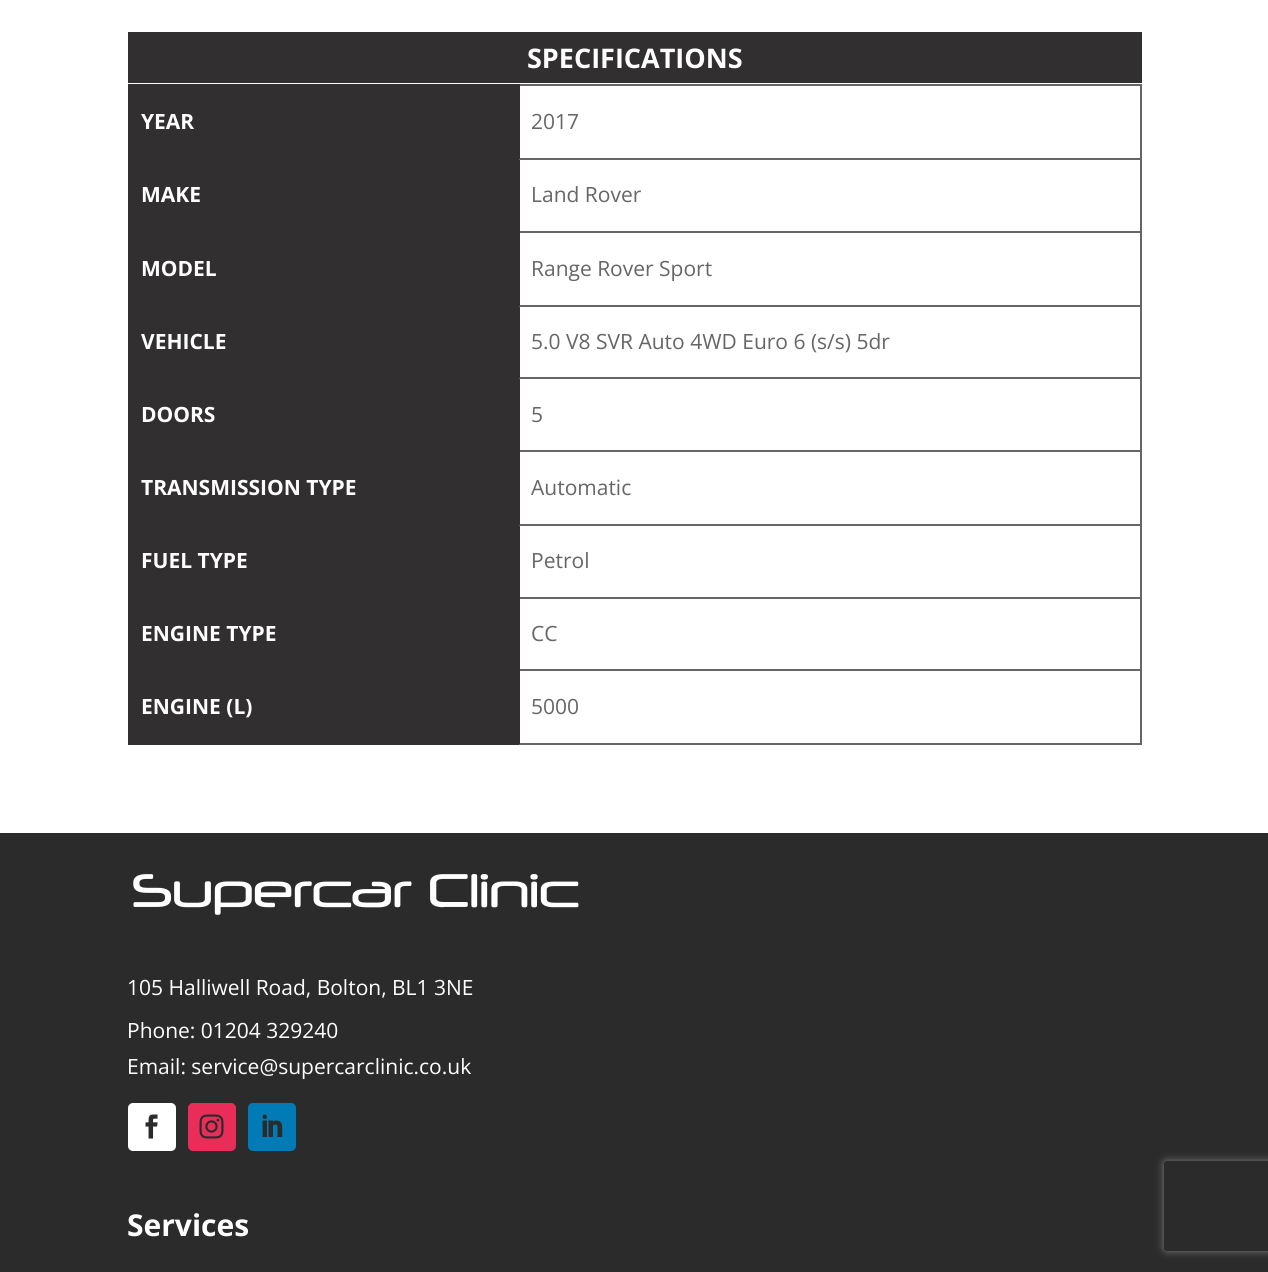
#include <cairo.h>
#include <math.h>
#include <stddef.h>

typedef struct { const char *family; double size; int italic, bold; unsigned color; } style_t;
static cairo_t *ctx;

static void ink(unsigned color) {
    cairo_set_source_rgb(ctx, (color >> 16) / 255.0, (color >> 8 & 255) / 255.0, (color & 255) / 255.0);
}

static void write(double x, double y, const char *s, const style_t *st) {
    cairo_select_font_face(ctx, st->family, st->italic ? CAIRO_FONT_SLANT_ITALIC : CAIRO_FONT_SLANT_NORMAL,
        st->bold ? CAIRO_FONT_WEIGHT_BOLD : CAIRO_FONT_WEIGHT_NORMAL);
    cairo_set_font_size(ctx, st->size);
    ink(st->color);
    cairo_move_to(ctx, x, y);
    cairo_show_text(ctx, s);
}

static void block(double x, double y, double w, double h, unsigned color) {
    ink(color);
    cairo_rectangle(ctx, x, y, w, h);
    cairo_fill(ctx);
}

static void round_path(double x, double y, double w, double h, double r) {
    cairo_new_sub_path(ctx);
    cairo_arc(ctx, x + w - r, y + h - r, r, 0, M_PI / 2);
    cairo_arc(ctx, x + r, y + h - r, r, M_PI / 2, M_PI);
    cairo_arc(ctx, x + r, y + r, r, M_PI, 1.5 * M_PI);
    cairo_arc(ctx, x + w - r, y + r, r, 1.5 * M_PI, 2 * M_PI);
    cairo_close_path(ctx);
}

static void blur_box(double x, double y, double w, double h, double r, double blur, double alpha) {
    cairo_push_group_with_content(ctx, CAIRO_CONTENT_ALPHA);
    cairo_set_operator(ctx, CAIRO_OPERATOR_SOURCE);
    for (int i = 15; i >= -15 && fmin(w, h) + blur * i / 3 > 0; i -= 2) {
        double e = blur * i / 6;
        cairo_set_source_rgba(ctx, 0, 0, 0, alpha * erfc((i - 1) / 8.5) / 2);
        round_path(x - e, y - e, w + 2 * e, h + 2 * e, fmax(0, fmin(r + e + blur * .6, fmin(w, h) / 2 + e)));
        cairo_fill(ctx);
    }
    cairo_pattern_t *soft = cairo_pop_group(ctx);
    cairo_mask(ctx, soft);
    cairo_pattern_destroy(soft);
}

static void paste(const char *path, double x, double y, double w, double h) {
    cairo_surface_t *image = cairo_image_surface_create_from_png(path);
    cairo_save(ctx);
    cairo_set_source_surface(ctx, image, x, y);
    cairo_rectangle(ctx, x, y, w, h);
    cairo_fill(ctx);
    cairo_restore(ctx);
    cairo_surface_destroy(image);
}

static const style_t s1 = {"Open Sans", 27, 0, 1, 0xffffff};
static const style_t s2 = {"Open Sans", 21, 0, 1, 0xffffff};
static const style_t s3 = {"Open Sans", 21, 0, 0, 0x666666};
static const style_t s4 = {"Open Sans", 21, 0, 0, 0xffffff};
static const style_t s5 = {"Open Sans", 30, 0, 1, 0xffffff};

int main(void) {
    cairo_surface_t *surface = cairo_image_surface_create(CAIRO_FORMAT_RGB24, 1268, 1272);
    ctx = cairo_create(surface);
    cairo_font_options_t *options = cairo_font_options_create();
    cairo_font_options_set_hint_metrics(options, CAIRO_HINT_METRICS_OFF);
    cairo_font_options_set_hint_style(options, CAIRO_HINT_STYLE_NONE);
    cairo_set_font_options(ctx, options);
    cairo_set_miter_limit(ctx, 4);
    ink(0xffffff);
    cairo_paint(ctx);
    block(128, 32, 1014, 51, 0x312f2f);
    write(527, 68, "SPECIFICATIONS", &s1);
    block(128, 86, 390, 72, 0x312f2f);
    block(518, 84, 624, 2, 0x666666);
    block(128, 84, 391, 2, 0x312f2f);
    block(1140, 158, 2, 586, 0x666666);
    block(1140, 84, 2, 75, 0x666666);
    block(128, 231, 391, 2, 0x312f2f);
    block(128, 450, 391, 2, 0x312f2f);
    block(128, 597, 391, 2, 0x312f2f);
    block(128, 669, 391, 2, 0x312f2f);
    block(518, 743, 624, 2, 0x666666);
    block(518, 669, 2, 75, 0x312f2f);
    block(518, 669, 624, 2, 0x666666);
    block(518, 597, 2, 74, 0x312f2f);
    block(518, 597, 624, 2, 0x666666);
    block(518, 524, 2, 75, 0x312f2f);
    block(518, 524, 624, 2, 0x666666);
    block(518, 450, 2, 75, 0x312f2f);
    block(518, 450, 624, 2, 0x666666);
    block(518, 377, 2, 75, 0x312f2f);
    block(518, 377, 624, 2, 0x666666);
    block(518, 305, 2, 73, 0x312f2f);
    block(518, 305, 624, 2, 0x666666);
    block(518, 231, 2, 75, 0x312f2f);
    block(518, 231, 624, 2, 0x666666);
    block(518, 158, 2, 75, 0x312f2f);
    block(518, 158, 624, 2, 0x666666);
    block(518, 84, 2, 75, 0x312f2f);
    block(128, 158, 391, 2, 0x312f2f);
    write(141, 129, "YEAR", &s2);
    write(531, 129, "2017", &s3);
    block(128, 160, 390, 71, 0x312f2f);
    write(141, 202, "MAKE", &s2);
    write(531, 202, "Land Rover", &s3);
    block(128, 233, 390, 72, 0x312f2f);
    block(128, 305, 391, 2, 0x312f2f);
    write(141, 276, "MODEL", &s2);
    write(531, 276, "Range Rover Sport", &s3);
    block(128, 307, 390, 70, 0x312f2f);
    block(128, 377, 391, 2, 0x312f2f);
    write(141, 349, "VEHICLE", &s2);
    write(531, 349, "5.0 V8 SVR Auto 4WD Euro 6 (s/s) 5dr", &s3);
    block(128, 379, 390, 71, 0x312f2f);
    write(141, 422, "DOORS", &s2);
    write(531, 422, "5", &s3);
    block(128, 452, 390, 72, 0x312f2f);
    block(128, 524, 391, 2, 0x312f2f);
    write(141, 495, "TRANSMISSION TYPE", &s2);
    write(531, 495, "Automatic", &s3);
    block(128, 526, 390, 71, 0x312f2f);
    write(141, 568, "FUEL TYPE", &s2);
    write(531, 568, "Petrol", &s3);
    block(128, 599, 390, 70, 0x312f2f);
    write(141, 641, "ENGINE TYPE", &s2);
    write(531, 641, "CC", &s3);
    block(128, 671, 390, 72, 0x312f2f);
    block(128, 743, 391, 2, 0x312f2f);
    write(141, 714, "ENGINE (L)", &s2);
    write(531, 714, "5000", &s3);
    block(0, 833, 1268, 439, 0x2b2b2b);
    paste("pic1.png", 133, 874, 446, 41);
    write(127, 995, "105 Halliwell Road, Bolton, BL1 3NE", &s4);
    write(127, 1038, "Phone: 01204 329240", &s4);
    write(127, 1074, "Email: service@supercarclinic.co.uk", &s4);
    round_path(128, 1103, 48, 48, 5);
    cairo_fill(ctx);
    paste("pic2.png", 145, 1114, 13, 25);
    ink(0xea2c59);
    round_path(188, 1103, 48, 48, 5);
    cairo_fill(ctx);
    paste("pic3.png", 199, 1114, 25, 25);
    ink(0x007bb6);
    round_path(248, 1103, 48, 48, 5);
    cairo_fill(ctx);
    paste("pic4.png", 262, 1114, 21, 23);
    write(127, 1236, "Services", &s5);
    cairo_save(ctx);
    cairo_set_fill_rule(ctx, CAIRO_FILL_RULE_EVEN_ODD);
    cairo_new_path(ctx);
    cairo_move_to(ctx, 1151, 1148);
    cairo_line_to(ctx, 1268, 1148);
    cairo_line_to(ctx, 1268, 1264);
    cairo_line_to(ctx, 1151, 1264);
    cairo_close_path(ctx);
    cairo_move_to(ctx, 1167, 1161);
    cairo_line_to(ctx, 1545, 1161);
    cairo_curve_to(ctx, 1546.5, 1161, 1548, 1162.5, 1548, 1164);
    cairo_line_to(ctx, 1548, 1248);
    cairo_curve_to(ctx, 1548, 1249.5, 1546.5, 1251, 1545, 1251);
    cairo_line_to(ctx, 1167, 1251);
    cairo_curve_to(ctx, 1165.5, 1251, 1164, 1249.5, 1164, 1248);
    cairo_line_to(ctx, 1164, 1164);
    cairo_curve_to(ctx, 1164, 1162.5, 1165.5, 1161, 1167, 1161);
    cairo_close_path(ctx);
    cairo_clip(ctx);
    ink(0x808080);
    blur_box(1164, 1161, 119, 90, 3, 4, 1);
    cairo_restore(ctx);
    cairo_surface_write_to_png(surface, "screenshot.png");
    cairo_font_options_destroy(options);
    cairo_destroy(ctx);
    cairo_surface_destroy(surface);
    return 0;
}
